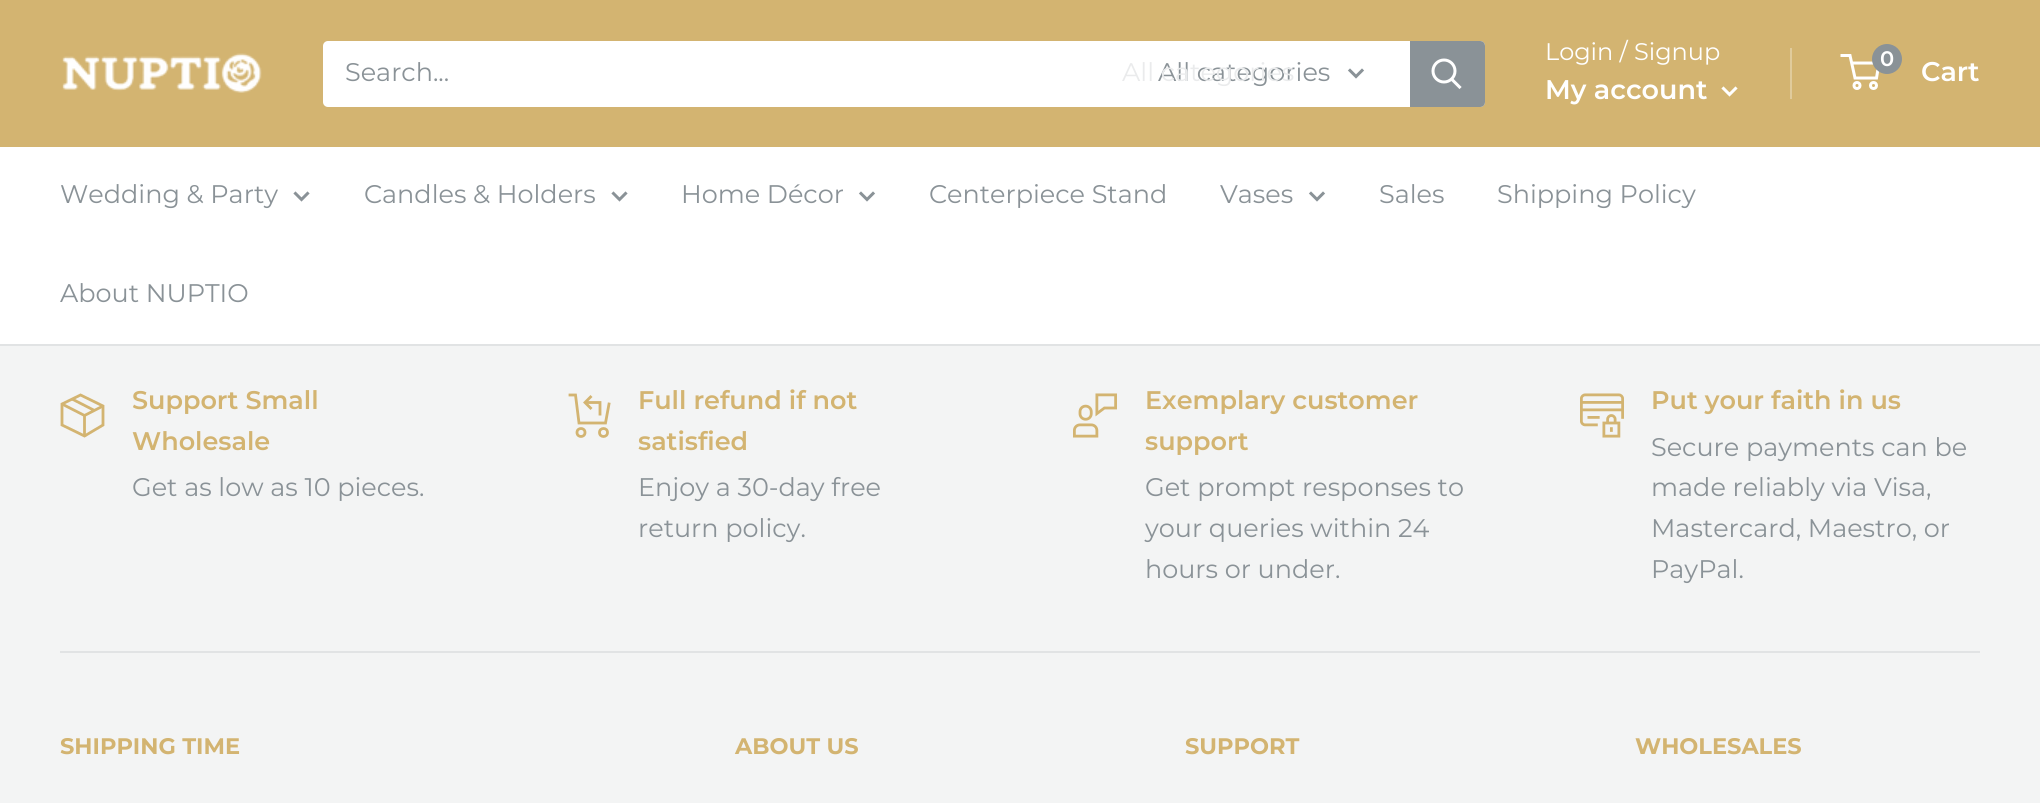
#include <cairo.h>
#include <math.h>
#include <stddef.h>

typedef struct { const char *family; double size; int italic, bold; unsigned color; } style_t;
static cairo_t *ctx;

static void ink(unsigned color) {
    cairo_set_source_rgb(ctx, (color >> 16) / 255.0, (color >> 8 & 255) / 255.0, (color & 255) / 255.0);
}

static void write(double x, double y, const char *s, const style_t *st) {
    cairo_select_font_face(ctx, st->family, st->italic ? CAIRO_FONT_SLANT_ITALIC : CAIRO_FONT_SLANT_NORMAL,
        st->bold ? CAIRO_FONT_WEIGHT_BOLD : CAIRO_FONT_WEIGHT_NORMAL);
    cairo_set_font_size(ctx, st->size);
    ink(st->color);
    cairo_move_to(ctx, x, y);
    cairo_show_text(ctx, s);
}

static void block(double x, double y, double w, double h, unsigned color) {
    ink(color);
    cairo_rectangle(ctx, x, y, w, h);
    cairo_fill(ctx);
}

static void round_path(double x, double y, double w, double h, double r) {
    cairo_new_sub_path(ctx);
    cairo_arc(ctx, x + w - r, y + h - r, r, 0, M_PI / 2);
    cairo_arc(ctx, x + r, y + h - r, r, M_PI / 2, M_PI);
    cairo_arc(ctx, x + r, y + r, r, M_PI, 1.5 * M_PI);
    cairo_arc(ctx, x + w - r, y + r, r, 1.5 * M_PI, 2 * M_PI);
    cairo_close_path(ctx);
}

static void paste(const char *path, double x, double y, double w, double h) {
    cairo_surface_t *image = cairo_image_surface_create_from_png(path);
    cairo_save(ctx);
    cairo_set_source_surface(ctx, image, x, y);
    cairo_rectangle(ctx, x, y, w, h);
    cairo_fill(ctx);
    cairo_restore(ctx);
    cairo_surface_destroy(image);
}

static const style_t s1 = {"Montserrat", 25.5, 0, 0, 0x8a9297};
static const style_t s2 = {"Montserrat", 25.5, 0, 0, 0xeaebec};
static const style_t s3 = {"Montserrat", 24, 0, 0, 0xffffff};
static const style_t s4 = {"Montserrat SemiBold", 27, 0, 0, 0xffffff};
static const style_t s5 = {"Montserrat SemiBold", 21, 0, 0, 0xffffff};
static const style_t s6 = {"Montserrat SemiBold", 25.5, 0, 0, 0xd3b471};
static const style_t s7 = {"Montserrat", 22.5, 0, 1, 0xd3b471};

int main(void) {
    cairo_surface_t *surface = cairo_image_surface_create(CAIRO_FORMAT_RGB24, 2040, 803);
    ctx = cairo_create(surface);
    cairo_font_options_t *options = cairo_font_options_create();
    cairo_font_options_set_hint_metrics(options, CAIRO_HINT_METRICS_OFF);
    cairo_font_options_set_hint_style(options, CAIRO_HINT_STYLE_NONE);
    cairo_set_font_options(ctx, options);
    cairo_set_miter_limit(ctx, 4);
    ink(0xf3f4f4);
    cairo_paint(ctx);
    block(0, 0, 2040, 147, 0xd3b471);
    paste("pic1.png", 62, 53, 200, 40);
    ink(0xffffff);
    round_path(323, 41, 1162, 66, 5);
    cairo_fill(ctx);
    write(345, 81, "Search...", &s1);
    write(1158, 81, "All categories", &s1);
    write(1122, 81, "All categories", &s2);
    cairo_new_path(ctx);
    cairo_move_to(ctx, 1362, 70.5);
    cairo_line_to(ctx, 1356, 76.5);
    cairo_line_to(ctx, 1350, 70.5);
    ink(0x8a9297);
    cairo_set_line_width(ctx, 3);
    cairo_set_line_cap(ctx, CAIRO_LINE_CAP_SQUARE);
    cairo_stroke(ctx);
    cairo_new_path(ctx);
    cairo_move_to(ctx, 1410, 41);
    cairo_line_to(ctx, 1480, 41);
    cairo_curve_to(ctx, 1483, 41, 1485, 43, 1485, 46);
    cairo_line_to(ctx, 1485, 102);
    cairo_curve_to(ctx, 1485, 105, 1483, 107, 1480, 107);
    cairo_line_to(ctx, 1410, 107);
    cairo_close_path(ctx);
    cairo_fill(ctx);
    cairo_new_path(ctx);
    cairo_move_to(ctx, 1459.5, 87);
    cairo_line_to(ctx, 1452, 79.5);
    ink(0xffffff);
    cairo_stroke(ctx);
    cairo_arc(ctx, 1444, 71, 11, 0, 2 * M_PI);
    cairo_set_line_cap(ctx, CAIRO_LINE_CAP_BUTT);
    cairo_stroke(ctx);
    write(1545, 60, "Login / Signup", &s3);
    block(1790, 48, 2, 51, 0xe0cb9c);
    write(1545, 99, "My account", &s4);
    cairo_new_path(ctx);
    cairo_move_to(ctx, 1735.5, 88.5);
    cairo_line_to(ctx, 1729.5, 94.5);
    cairo_line_to(ctx, 1723.5, 88.5);
    cairo_set_line_cap(ctx, CAIRO_LINE_CAP_SQUARE);
    cairo_stroke(ctx);
    cairo_arc(ctx, 1857, 85.5, 3, 0, 2 * M_PI);
    cairo_set_line_cap(ctx, CAIRO_LINE_CAP_BUTT);
    cairo_stroke(ctx);
    cairo_arc(ctx, 1873.5, 85.5, 3, 0, 2 * M_PI);
    cairo_stroke(ctx);
    cairo_new_path(ctx);
    cairo_move_to(ctx, 1851.5, 63);
    cairo_line_to(ctx, 1879, 63);
    cairo_line_to(ctx, 1876.5, 78);
    cairo_line_to(ctx, 1855, 78);
    cairo_line_to(ctx, 1850, 55.5);
    cairo_line_to(ctx, 1840.5, 55.5);
    cairo_stroke(ctx);
    ink(0x8a9297);
    cairo_arc(ctx, 1887, 59, 15, 0, 2 * M_PI);
    cairo_fill(ctx);
    write(1880, 66, "0", &s5);
    write(1921, 81, "Cart", &s4);
    block(0, 147, 2040, 197, 0xffffff);
    block(0, 344, 2040, 2, 0xe1e3e4);
    write(60, 203, "Wedding & Party", &s1);
    cairo_new_path(ctx);
    cairo_move_to(ctx, 307.5, 193.5);
    cairo_line_to(ctx, 301.5, 199.5);
    cairo_line_to(ctx, 295.5, 193.5);
    cairo_set_line_cap(ctx, CAIRO_LINE_CAP_SQUARE);
    cairo_stroke(ctx);
    write(364, 203, "Candles & Holders", &s1);
    cairo_new_path(ctx);
    cairo_move_to(ctx, 625.5, 193.5);
    cairo_line_to(ctx, 619.5, 199.5);
    cairo_line_to(ctx, 613.5, 193.5);
    cairo_stroke(ctx);
    write(681, 203, "Home Décor", &s1);
    cairo_new_path(ctx);
    cairo_move_to(ctx, 873, 193.5);
    cairo_line_to(ctx, 867, 199.5);
    cairo_line_to(ctx, 861, 193.5);
    cairo_stroke(ctx);
    write(929, 203, "Centerpiece Stand", &s1);
    write(1220, 203, "Vases", &s1);
    cairo_new_path(ctx);
    cairo_move_to(ctx, 1323, 193.5);
    cairo_line_to(ctx, 1317, 199.5);
    cairo_line_to(ctx, 1311, 193.5);
    cairo_stroke(ctx);
    write(1379, 203, "Sales", &s1);
    write(1497, 203, "Shipping Policy", &s1);
    write(60, 302, "About NUPTIO", &s1);
    cairo_new_path(ctx);
    cairo_move_to(ctx, 72, 399);
    cairo_line_to(ctx, 94.5, 410.5);
    cairo_move_to(ctx, 103, 406);
    cairo_line_to(ctx, 84.5, 415.5);
    cairo_line_to(ctx, 62, 404);
    cairo_move_to(ctx, 84.5, 415.5);
    cairo_line_to(ctx, 84.5, 436);
    ink(0xd3b471);
    cairo_set_line_width(ctx, 2.8);
    cairo_set_line_cap(ctx, CAIRO_LINE_CAP_BUTT);
    cairo_stroke(ctx);
    cairo_new_path(ctx);
    cairo_move_to(ctx, 103, 406);
    cairo_line_to(ctx, 103, 425);
    cairo_line_to(ctx, 84.5, 436);
    cairo_line_to(ctx, 62, 425);
    cairo_line_to(ctx, 62, 404);
    cairo_line_to(ctx, 80.5, 395);
    cairo_close_path(ctx);
    cairo_set_line_cap(ctx, CAIRO_LINE_CAP_SQUARE);
    cairo_stroke(ctx);
    write(132, 409, "Support Small", &s6);
    write(132, 450, "Wholesale", &s6);
    write(132, 496, "Get as low as 10 pieces.", &s1);
    cairo_new_path(ctx);
    cairo_move_to(ctx, 585, 402.5);
    cairo_line_to(ctx, 600, 402.5);
    cairo_line_to(ctx, 600, 415.5);
    ink(0xd3b471);
    cairo_set_line_cap(ctx, CAIRO_LINE_CAP_BUTT);
    cairo_stroke(ctx);
    cairo_new_path(ctx);
    cairo_move_to(ctx, 590.5, 408);
    cairo_line_to(ctx, 585, 402.5);
    cairo_line_to(ctx, 590.5, 397);
    cairo_set_line_cap(ctx, CAIRO_LINE_CAP_SQUARE);
    cairo_stroke(ctx);
    cairo_new_path(ctx);
    cairo_move_to(ctx, 609, 404);
    cairo_line_to(ctx, 605.5, 423);
    cairo_line_to(ctx, 579, 423);
    cairo_line_to(ctx, 575.5, 395);
    cairo_line_to(ctx, 570, 395);
    cairo_stroke(ctx);
    cairo_arc(ctx, 581, 432.5, 4, 0, 2 * M_PI);
    cairo_set_line_cap(ctx, CAIRO_LINE_CAP_BUTT);
    cairo_stroke(ctx);
    cairo_arc(ctx, 603.5, 432.5, 4, 0, 2 * M_PI);
    cairo_stroke(ctx);
    write(638, 409, "Full refund if not", &s6);
    write(638, 450, "satisfied", &s6);
    write(638, 496, "Enjoy a 30-day free", &s1);
    write(638, 537, "return policy.", &s1);
    paste("pic2.png", 1073, 393, 44, 45);
    write(1145, 409, "Exemplary customer", &s6);
    write(1145, 450, "support", &s6);
    write(1145, 496, "Get prompt responses to", &s1);
    write(1145, 537, "your queries within 24", &s1);
    write(1145, 578, "hours or under.", &s1);
    paste("pic3.png", 1580, 393, 44, 45);
    write(1651, 409, "Put your faith in us", &s6);
    write(1651, 456, "Secure payments can be", &s1);
    write(1651, 496, "made reliably via Visa,", &s1);
    write(1651, 537, "Mastercard, Maestro, or", &s1);
    write(1651, 578, "PayPal.", &s1);
    block(60, 651, 1920, 2, 0xe1e3e4);
    write(60, 754, "SHIPPING TIME", &s7);
    write(735, 754, "ABOUT US", &s7);
    write(1185, 754, "SUPPORT", &s7);
    write(1635, 754, "WHOLESALES", &s7);
    cairo_surface_write_to_png(surface, "screenshot.png");
    cairo_font_options_destroy(options);
    cairo_destroy(ctx);
    cairo_surface_destroy(surface);
    return 0;
}
